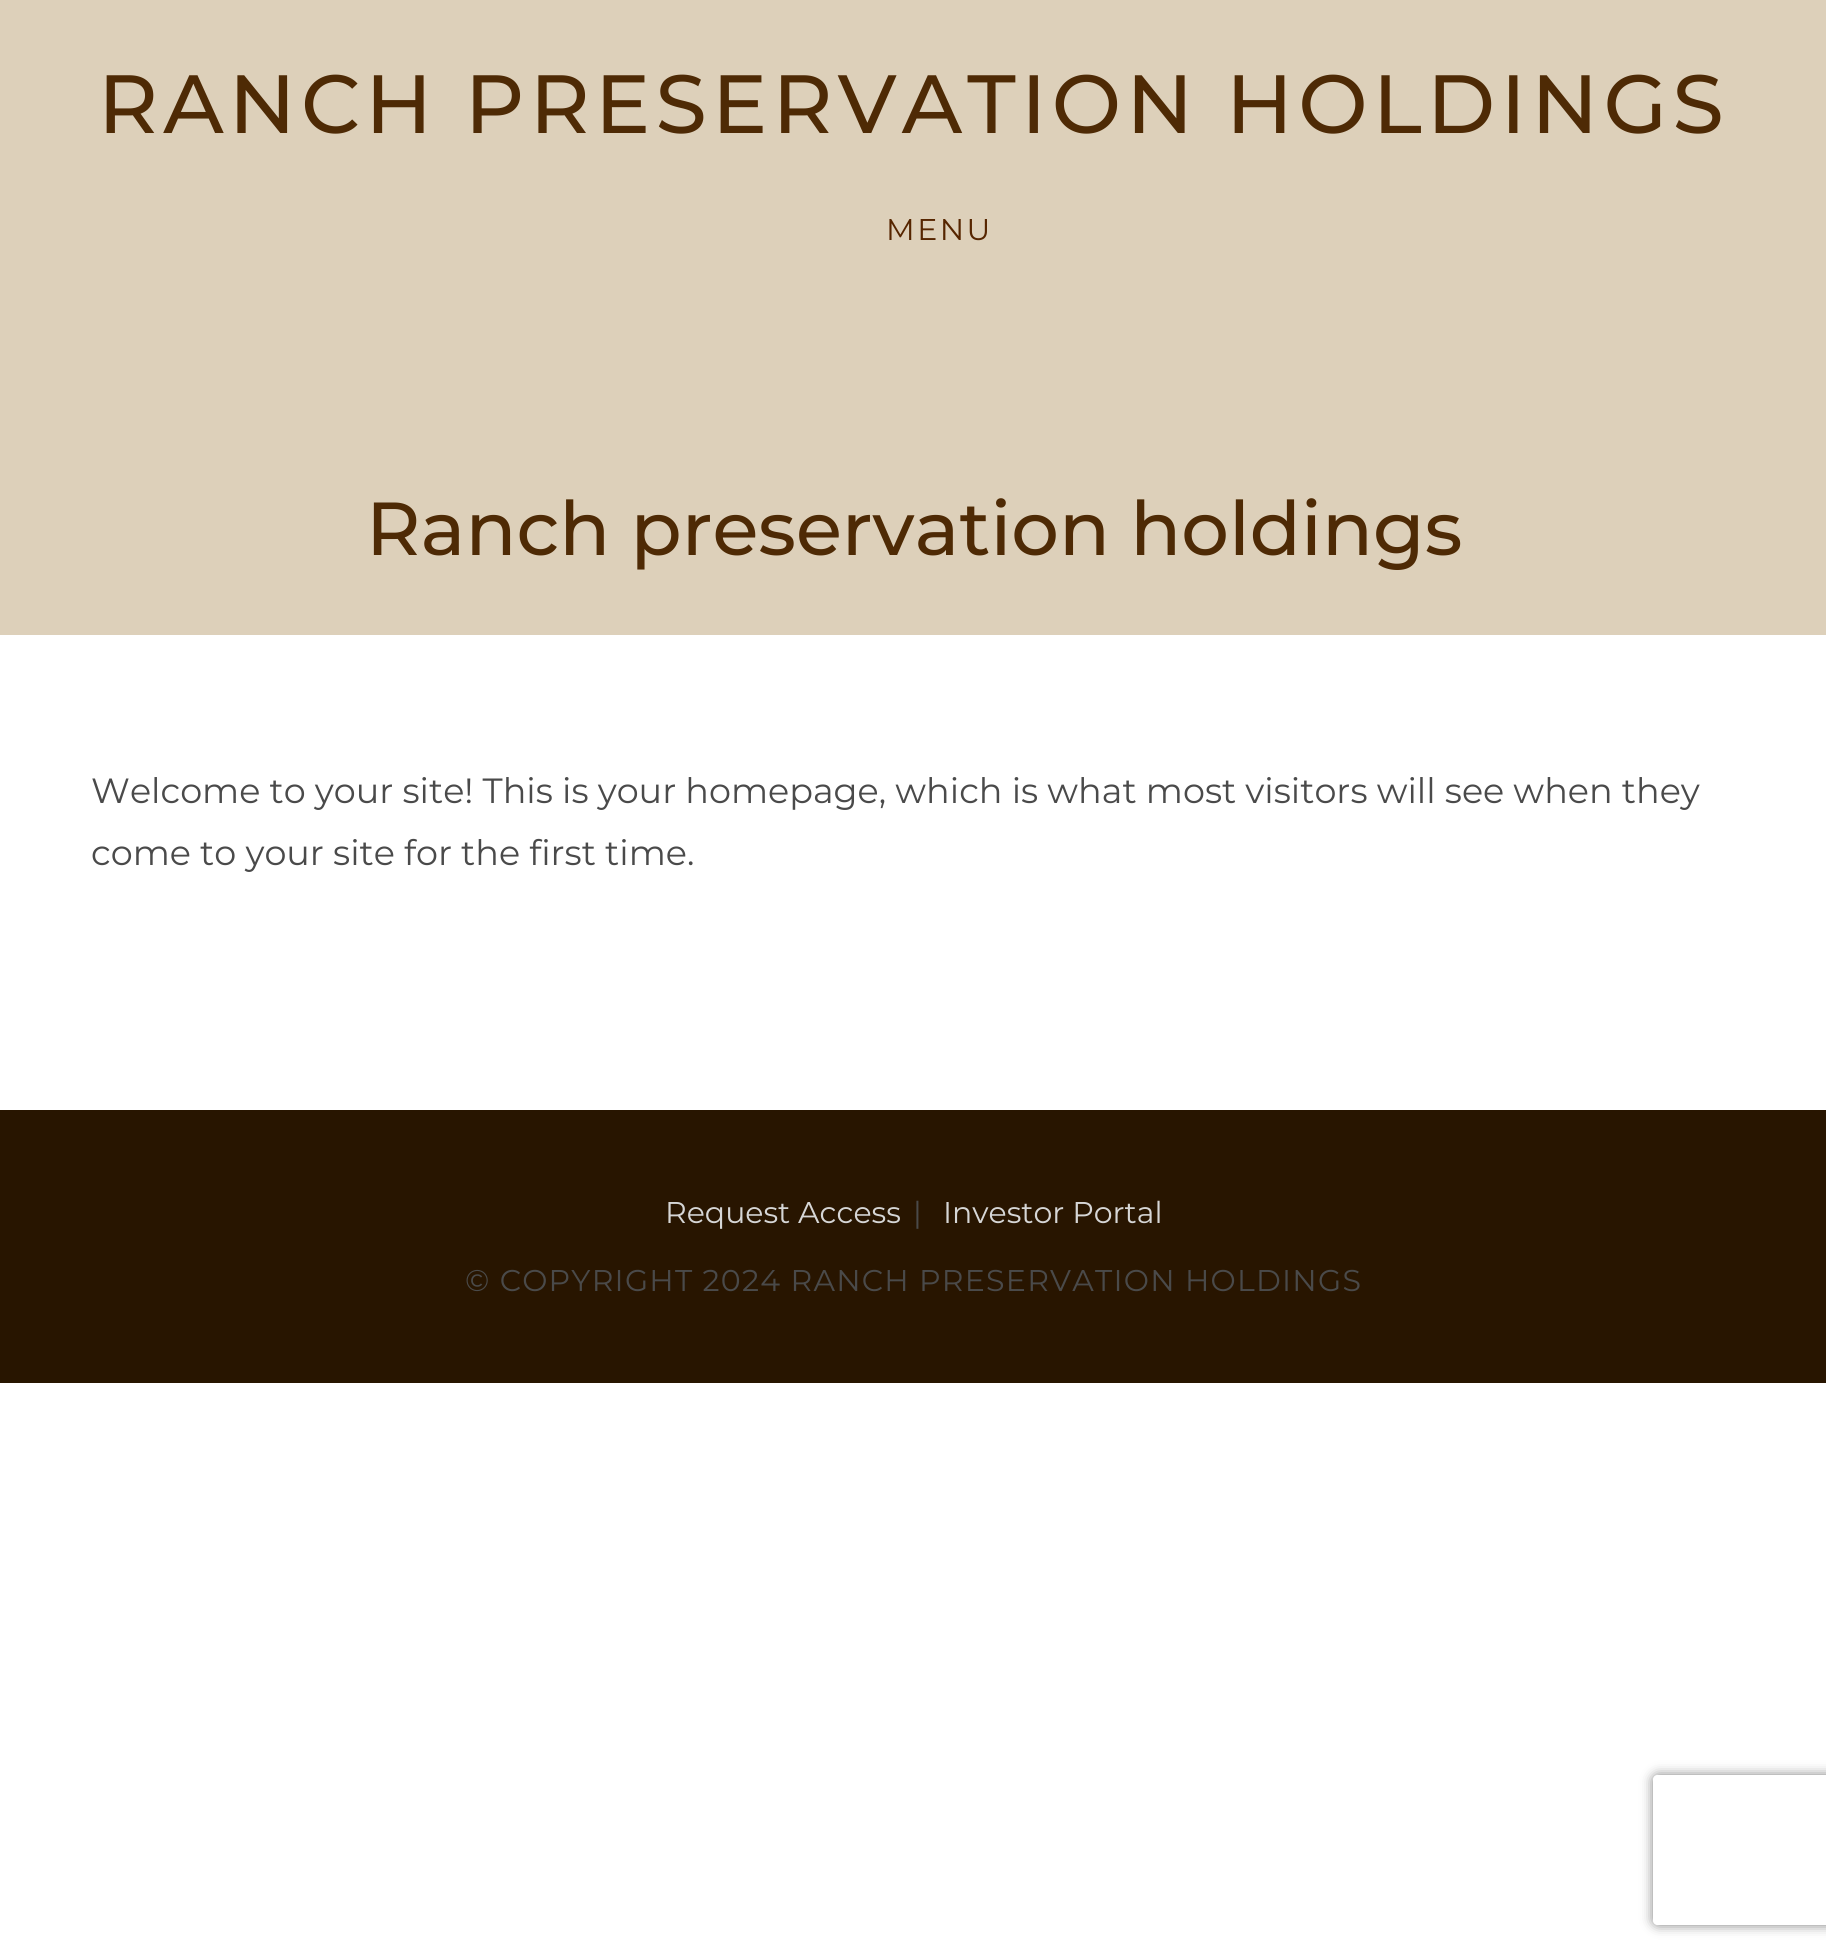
#include <cairo.h>
#include <math.h>
#include <stddef.h>

typedef struct { const char *family; double size; int italic, bold; unsigned color; } style_t;
static cairo_t *ctx;

static void ink(unsigned color) {
    cairo_set_source_rgb(ctx, (color >> 16) / 255.0, (color >> 8 & 255) / 255.0, (color & 255) / 255.0);
}

static void write(double x, double y, const char *s, const style_t *st) {
    cairo_select_font_face(ctx, st->family, st->italic ? CAIRO_FONT_SLANT_ITALIC : CAIRO_FONT_SLANT_NORMAL,
        st->bold ? CAIRO_FONT_WEIGHT_BOLD : CAIRO_FONT_WEIGHT_NORMAL);
    cairo_set_font_size(ctx, st->size);
    ink(st->color);
    cairo_move_to(ctx, x, y);
    cairo_show_text(ctx, s);
}

static void write_spaced(double x, double y, const char *s, double letter, double word) {
    cairo_move_to(ctx, x, y);
    while (*s) {
        char ch[5] = {0};
        int n = 0;
        do ch[n++] = *s++; while ((*s & 0xC0) == 0x80);
        cairo_show_text(ctx, ch);
        cairo_rel_move_to(ctx, letter + word * (*ch == ' '), 0);
    }
}

static void block(double x, double y, double w, double h, unsigned color) {
    ink(color);
    cairo_rectangle(ctx, x, y, w, h);
    cairo_fill(ctx);
}

static void round_path(double x, double y, double w, double h, double r) {
    cairo_new_sub_path(ctx);
    cairo_arc(ctx, x + w - r, y + h - r, r, 0, M_PI / 2);
    cairo_arc(ctx, x + r, y + h - r, r, M_PI / 2, M_PI);
    cairo_arc(ctx, x + r, y + r, r, M_PI, 1.5 * M_PI);
    cairo_arc(ctx, x + w - r, y + r, r, 1.5 * M_PI, 2 * M_PI);
    cairo_close_path(ctx);
}

static void blur_box(double x, double y, double w, double h, double r, double blur, double alpha) {
    cairo_push_group_with_content(ctx, CAIRO_CONTENT_ALPHA);
    cairo_set_operator(ctx, CAIRO_OPERATOR_SOURCE);
    for (int i = 15; i >= -15 && fmin(w, h) + blur * i / 3 > 0; i -= 2) {
        double e = blur * i / 6;
        cairo_set_source_rgba(ctx, 0, 0, 0, alpha * erfc((i - 1) / 8.5) / 2);
        round_path(x - e, y - e, w + 2 * e, h + 2 * e, fmax(0, fmin(r + e + blur * .6, fmin(w, h) / 2 + e)));
        cairo_fill(ctx);
    }
    cairo_pattern_t *soft = cairo_pop_group(ctx);
    cairo_mask(ctx, soft);
    cairo_pattern_destroy(soft);
}

static const style_t s1 = {"Montserrat Medium", 75, 0, 0, 0x4e2a05};
static const style_t s2 = {"Montserrat", 35, 0, 0, 0x4a4a4a};
static const style_t s3 = {"Montserrat", 30, 0, 0, 0xd6d6d6};
static const style_t s4 = {"Montserrat", 30, 0, 0, 0x4a4a4a};

int main(void) {
    cairo_surface_t *surface = cairo_image_surface_create(CAIRO_FORMAT_RGB24, 1826, 1960);
    ctx = cairo_create(surface);
    cairo_font_options_t *options = cairo_font_options_create();
    cairo_font_options_set_hint_metrics(options, CAIRO_HINT_METRICS_OFF);
    cairo_font_options_set_hint_style(options, CAIRO_HINT_STYLE_NONE);
    cairo_set_font_options(ctx, options);
    cairo_set_miter_limit(ctx, 4);
    ink(0xffffff);
    cairo_paint(ctx);
    block(0, 0, 1826, 635, 0xddd0ba);
    cairo_select_font_face(ctx, "Montserrat Medium", CAIRO_FONT_SLANT_NORMAL, CAIRO_FONT_WEIGHT_NORMAL);
    cairo_set_font_size(ctx, 82.5);
    ink(0x4e2a05);
    write_spaced(98, 133, "RANCH PRESERVATION HOLDINGS", 5.25, 0);
    cairo_select_font_face(ctx, "Montserrat", CAIRO_FONT_SLANT_NORMAL, CAIRO_FONT_WEIGHT_NORMAL);
    cairo_set_font_size(ctx, 30);
    ink(0x562500);
    write_spaced(886, 240, "MENU", 2.5, 0);
    write(366, 555, "Ranch preservation holdings", &s1);
    write(91, 803, "Welcome to your site! This is your homepage, which is what most visitors will see when they", &s2);
    write(91, 865, "come to your site for the first time.", &s2);
    block(0, 1110, 1826, 273, 0x281500);
    write(665, 1223, "Request Access", &s3);
    write(913, 1223, "|", &s4);
    write(943, 1223, "Investor Portal", &s3);
    ink(0x4a4a4a);
    write_spaced(465, 1291, "© COPYRIGHT 2024 RANCH PRESERVATION HOLDINGS", 1.25, 0);
    cairo_save(ctx);
    cairo_set_fill_rule(ctx, CAIRO_FILL_RULE_EVEN_ODD);
    cairo_new_path(ctx);
    cairo_move_to(ctx, 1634, 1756);
    cairo_line_to(ctx, 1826, 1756);
    cairo_line_to(ctx, 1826, 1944);
    cairo_line_to(ctx, 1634, 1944);
    cairo_close_path(ctx);
    cairo_move_to(ctx, 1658, 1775);
    cairo_line_to(ctx, 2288, 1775);
    cairo_curve_to(ctx, 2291, 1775, 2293, 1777, 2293, 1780);
    cairo_line_to(ctx, 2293, 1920);
    cairo_curve_to(ctx, 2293, 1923, 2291, 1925, 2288, 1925);
    cairo_line_to(ctx, 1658, 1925);
    cairo_curve_to(ctx, 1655, 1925, 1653, 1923, 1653, 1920);
    cairo_line_to(ctx, 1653, 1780);
    cairo_curve_to(ctx, 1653, 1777, 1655, 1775, 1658, 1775);
    cairo_close_path(ctx);
    cairo_clip(ctx);
    ink(0x808080);
    blur_box(1653, 1775, 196, 150, 5, 6, 1);
    cairo_restore(ctx);
    cairo_surface_write_to_png(surface, "screenshot.png");
    cairo_font_options_destroy(options);
    cairo_destroy(ctx);
    cairo_surface_destroy(surface);
    return 0;
}
